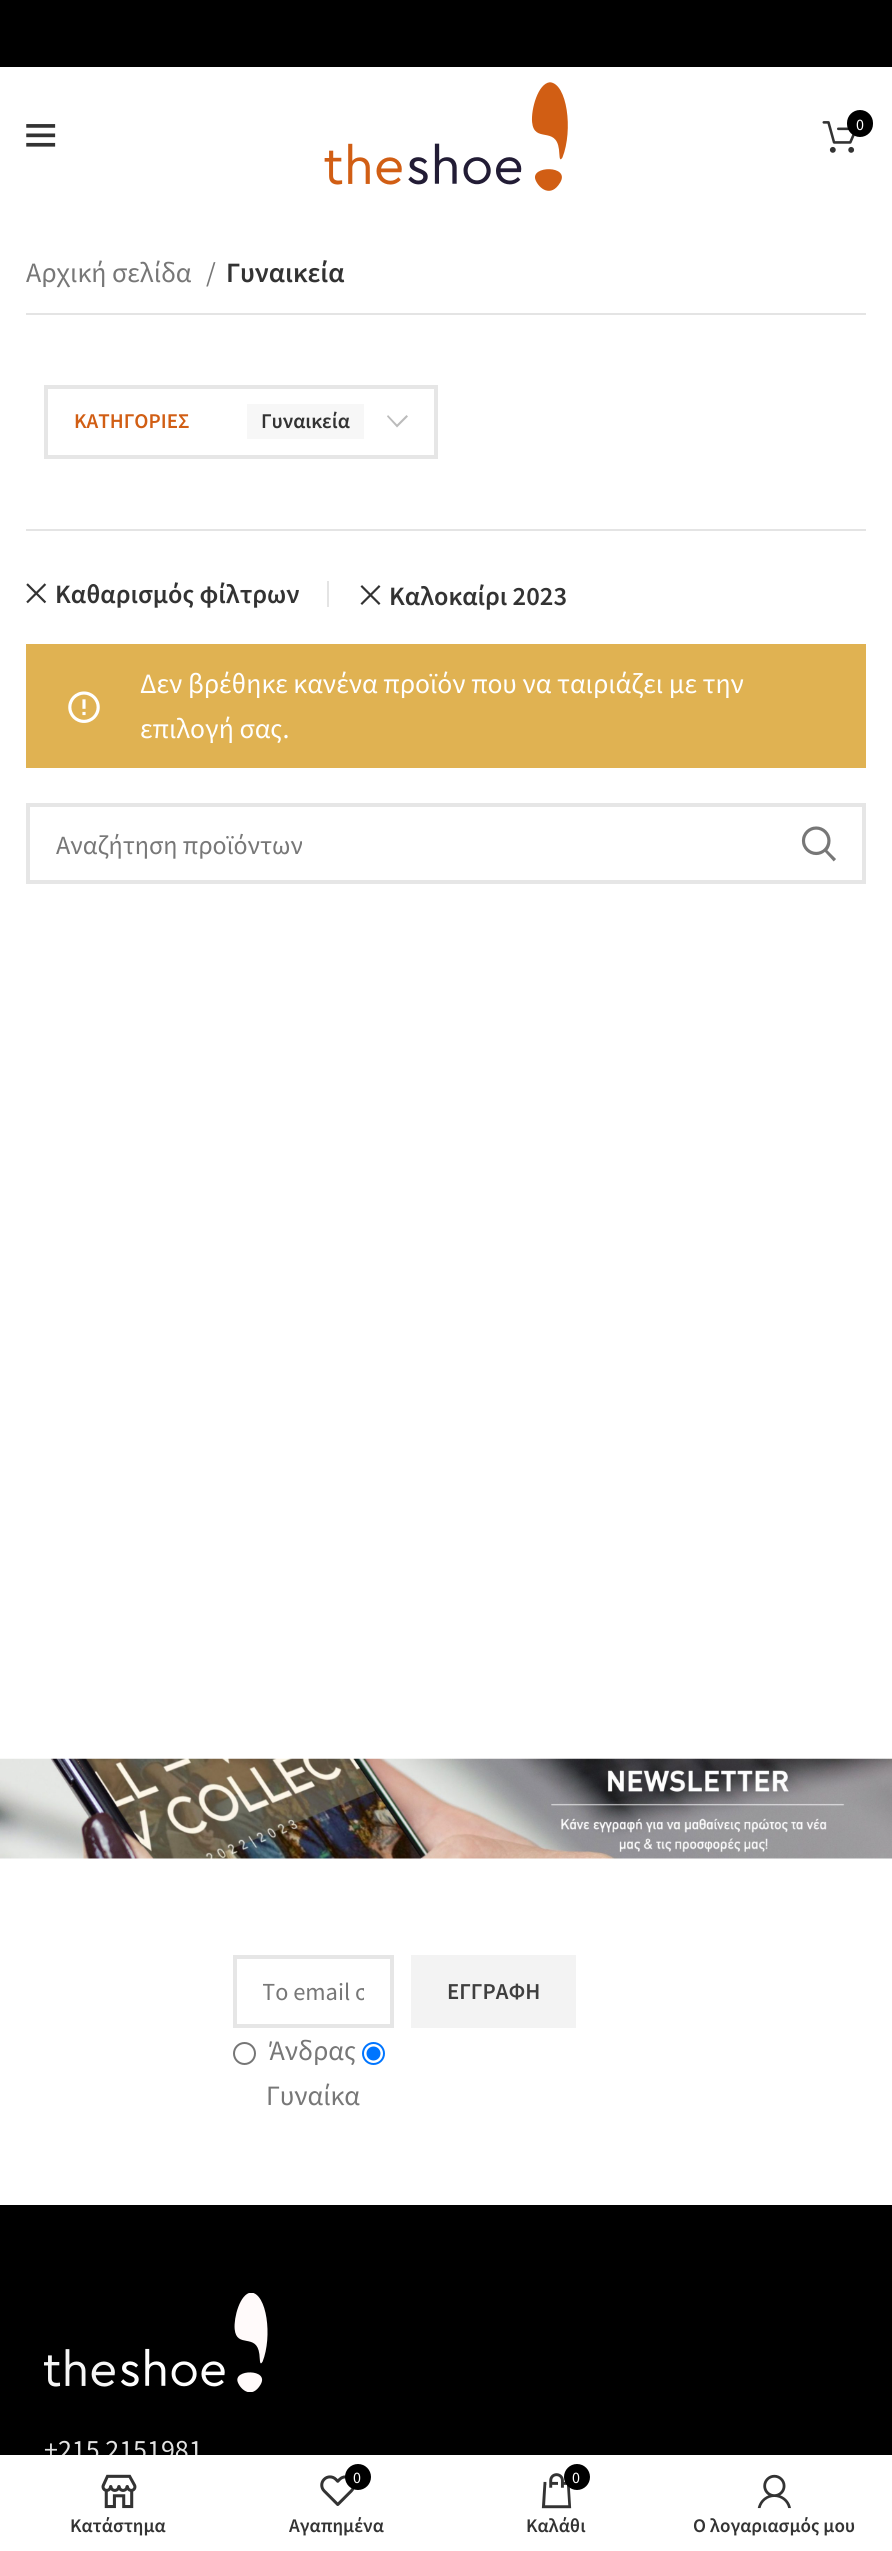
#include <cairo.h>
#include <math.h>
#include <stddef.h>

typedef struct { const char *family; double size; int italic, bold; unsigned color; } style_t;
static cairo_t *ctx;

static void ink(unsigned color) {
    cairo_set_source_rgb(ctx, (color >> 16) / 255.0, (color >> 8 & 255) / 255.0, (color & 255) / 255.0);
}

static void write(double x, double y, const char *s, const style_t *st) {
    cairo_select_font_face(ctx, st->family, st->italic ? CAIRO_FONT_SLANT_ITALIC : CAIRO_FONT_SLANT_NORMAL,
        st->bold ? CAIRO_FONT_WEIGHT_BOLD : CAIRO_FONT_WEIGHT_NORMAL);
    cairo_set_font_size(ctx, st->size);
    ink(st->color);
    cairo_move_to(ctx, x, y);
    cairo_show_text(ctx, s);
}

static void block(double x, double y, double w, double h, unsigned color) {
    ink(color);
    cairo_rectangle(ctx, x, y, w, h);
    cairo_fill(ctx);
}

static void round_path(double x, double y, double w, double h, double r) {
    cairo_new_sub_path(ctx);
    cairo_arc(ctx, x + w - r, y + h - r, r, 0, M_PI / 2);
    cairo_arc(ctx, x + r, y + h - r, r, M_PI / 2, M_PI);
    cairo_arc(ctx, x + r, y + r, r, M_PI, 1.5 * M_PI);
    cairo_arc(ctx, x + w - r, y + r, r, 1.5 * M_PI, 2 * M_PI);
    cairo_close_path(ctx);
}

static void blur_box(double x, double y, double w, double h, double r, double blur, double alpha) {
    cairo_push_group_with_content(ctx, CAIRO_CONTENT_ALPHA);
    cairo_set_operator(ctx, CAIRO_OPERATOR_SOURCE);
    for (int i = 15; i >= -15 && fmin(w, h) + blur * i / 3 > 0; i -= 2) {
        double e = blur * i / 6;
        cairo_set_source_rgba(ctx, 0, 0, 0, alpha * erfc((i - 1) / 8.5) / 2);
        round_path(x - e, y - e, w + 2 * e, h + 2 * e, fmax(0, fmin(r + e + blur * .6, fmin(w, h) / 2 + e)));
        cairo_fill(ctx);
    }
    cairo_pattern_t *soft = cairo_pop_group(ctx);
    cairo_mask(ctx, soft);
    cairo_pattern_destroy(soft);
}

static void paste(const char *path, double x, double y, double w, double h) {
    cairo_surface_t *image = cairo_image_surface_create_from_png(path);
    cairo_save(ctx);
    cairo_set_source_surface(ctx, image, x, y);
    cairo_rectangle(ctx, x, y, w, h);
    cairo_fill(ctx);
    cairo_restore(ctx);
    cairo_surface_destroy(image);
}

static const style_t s1 = {"Source Sans Pro", 16, 0, 0, 0xffffff};
static const style_t s2 = {"Source Sans Pro", 28, 0, 0, 0x777777};
static const style_t s3 = {"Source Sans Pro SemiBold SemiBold", 28, 0, 0, 0x333333};
static const style_t s4 = {"Source Sans Pro SemiBold SemiBold", 21, 0, 0, 0xd15e14};
static const style_t s5 = {"Source Sans Pro SemiBold SemiBold", 21, 0, 0, 0x333333};
static const style_t s6 = {"Source Sans Pro SemiBold SemiBold", 26.5, 0, 0, 0x333333};
static const style_t s7 = {"Source Sans Pro", 28, 0, 0, 0xffffff};
static const style_t s8 = {"Source Sans Pro", 26.25, 0, 0, 0x777777};
static const style_t s9 = {"Source Sans Pro", 24.5, 0, 0, 0x777777};
static const style_t s10 = {"Source Sans Pro SemiBold SemiBold", 22.75, 0, 0, 0x3e3e3e};
static const style_t s11 = {"Source Sans Pro", 28, 0, 0, 0xe6e6e6};
static const style_t s12 = {"Source Sans Pro SemiBold SemiBold", 19.25, 0, 0, 0x333333};

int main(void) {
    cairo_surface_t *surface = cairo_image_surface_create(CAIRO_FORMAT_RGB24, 892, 2551);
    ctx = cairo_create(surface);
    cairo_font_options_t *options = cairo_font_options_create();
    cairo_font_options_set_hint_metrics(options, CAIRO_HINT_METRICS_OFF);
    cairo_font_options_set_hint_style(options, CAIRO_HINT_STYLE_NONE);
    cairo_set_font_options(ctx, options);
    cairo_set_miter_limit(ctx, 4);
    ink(0xffffff);
    cairo_paint(ctx);
    block(0, 0, 892, 67, 0x000000);
    paste("pic1.png", 26, 124, 30, 23);
    paste("pic2.png", 324, 82, 244, 109);
    paste("pic3.png", 822, 121, 33, 32);
    round_path(847, 110, 26, 27, 13);
    cairo_fill(ctx);
    write(856, 130, "0", &s1);
    write(26, 282, "Αρχική σελίδα", &s2);
    write(206, 282, "/", &s2);
    write(226, 282, "Γυναικεία", &s3);
    block(26, 313, 840, 2, 0xe4e4e4);
    block(26, 529, 840, 2, 0xe4e4e4);
    cairo_rectangle(ctx, 46, 387, 390, 70);
    ink(0xe6e6e6);
    cairo_set_line_width(ctx, 4);
    cairo_stroke(ctx);
    write(74, 428, "ΚΑΤΗΓΟΡΙΕΣ", &s4);
    block(247, 404, 117, 35, 0xf7f7f7);
    write(261, 428, "Γυναικεία", &s5);
    ink(0xbbbbbb);
    cairo_new_path(ctx);
    cairo_move_to(ctx, 406.5, 415);
    cairo_line_to(ctx, 408, 416.5);
    cairo_line_to(ctx, 397, 427.5);
    cairo_line_to(ctx, 387, 416.5);
    cairo_line_to(ctx, 388, 415);
    cairo_line_to(ctx, 397, 424.5);
    cairo_close_path(ctx);
    cairo_fill(ctx);
    block(327, 581, 2, 26, 0xe4e4e4);
    paste("pic4.png", 26, 583, 21, 21);
    write(55, 603, "Καθαρισμός φίλτρων", &s6);
    paste("pic5.png", 360, 585, 21, 20);
    write(389, 605, "Καλοκαίρι 2023", &s6);
    block(26, 644, 840, 124, 0xe0b252);
    write(140, 693, "Δεν βρέθηκε κανένα προϊόν που να ταιριάζει με την", &s7);
    paste("pic6.png", 68, 691, 32, 32);
    write(140, 738, "επιλογή σας.", &s7);
    cairo_rectangle(ctx, 28, 805, 836, 77);
    ink(0xe6e6e6);
    cairo_stroke(ctx);
    write(56, 854, "Αναζήτηση προϊόντων", &s8);
    paste("pic7.png", 801, 826, 35, 36);
    paste("pic8.png", 0, 1758, 892, 101);
    cairo_rectangle(ctx, 235, 1957, 157, 69);
    ink(0xe6e6e6);
    cairo_stroke(ctx);
    cairo_save(ctx);
    cairo_rectangle(ctx, 263, 1976, 101, 31);
    cairo_clip(ctx);
    write(262, 2000, "Το email σ", &s9);
    cairo_restore(ctx);
    cairo_new_path(ctx);
    cairo_arc(ctx, 244.5, 2053.5, 10.5, 0, 2 * M_PI);
    ink(0x767676);
    cairo_set_line_width(ctx, 2);
    cairo_stroke(ctx);
    write(269, 2060, "Άνδρας", &s2);
    cairo_new_path(ctx);
    cairo_arc(ctx, 373.5, 2053.5, 10.5, 0, 2 * M_PI);
    ink(0x0075ff);
    cairo_stroke(ctx);
    cairo_arc(ctx, 373.5, 2053.5, 7, 0, 2 * M_PI);
    cairo_fill(ctx);
    write(266, 2105, "Γυναίκα", &s2);
    block(411, 1955, 165, 73, 0xf3f3f3);
    write(447, 1999, "ΕΓΓΡΑΦΗ", &s10);
    block(0, 2205, 892, 250, 0x000000);
    paste("pic9.png", 44, 2293, 224, 99);
    write(44, 2459, "+215 2151981", &s11);
    ink(0x000000);
    blur_box(0, 2455, 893, 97, 0, 8, 0.12);
    block(0, 2455, 892, 96, 0xffffff);
    paste("pic10.png", 101, 2474, 36, 35);
    write(70, 2532, "Κατάστημα", &s12);
    paste("pic11.png", 320, 2475, 35, 31);
    ink(0x000000);
    cairo_arc(ctx, 358, 2477, 13, 0, 2 * M_PI);
    cairo_fill(ctx);
    write(353, 2483, "0", &s1);
    write(289, 2532, "Αγαπημένα", &s12);
    paste("pic12.png", 541, 2473, 31, 36);
    ink(0x000000);
    cairo_arc(ctx, 577, 2477, 13, 0, 2 * M_PI);
    cairo_fill(ctx);
    write(572, 2483, "0", &s1);
    write(526, 2532, "Καλάθι", &s12);
    paste("pic13.png", 757, 2474, 34, 35);
    write(693, 2532, "Ο λογαριασμός μου", &s12);
    cairo_surface_write_to_png(surface, "screenshot.png");
    cairo_font_options_destroy(options);
    cairo_destroy(ctx);
    cairo_surface_destroy(surface);
    return 0;
}
